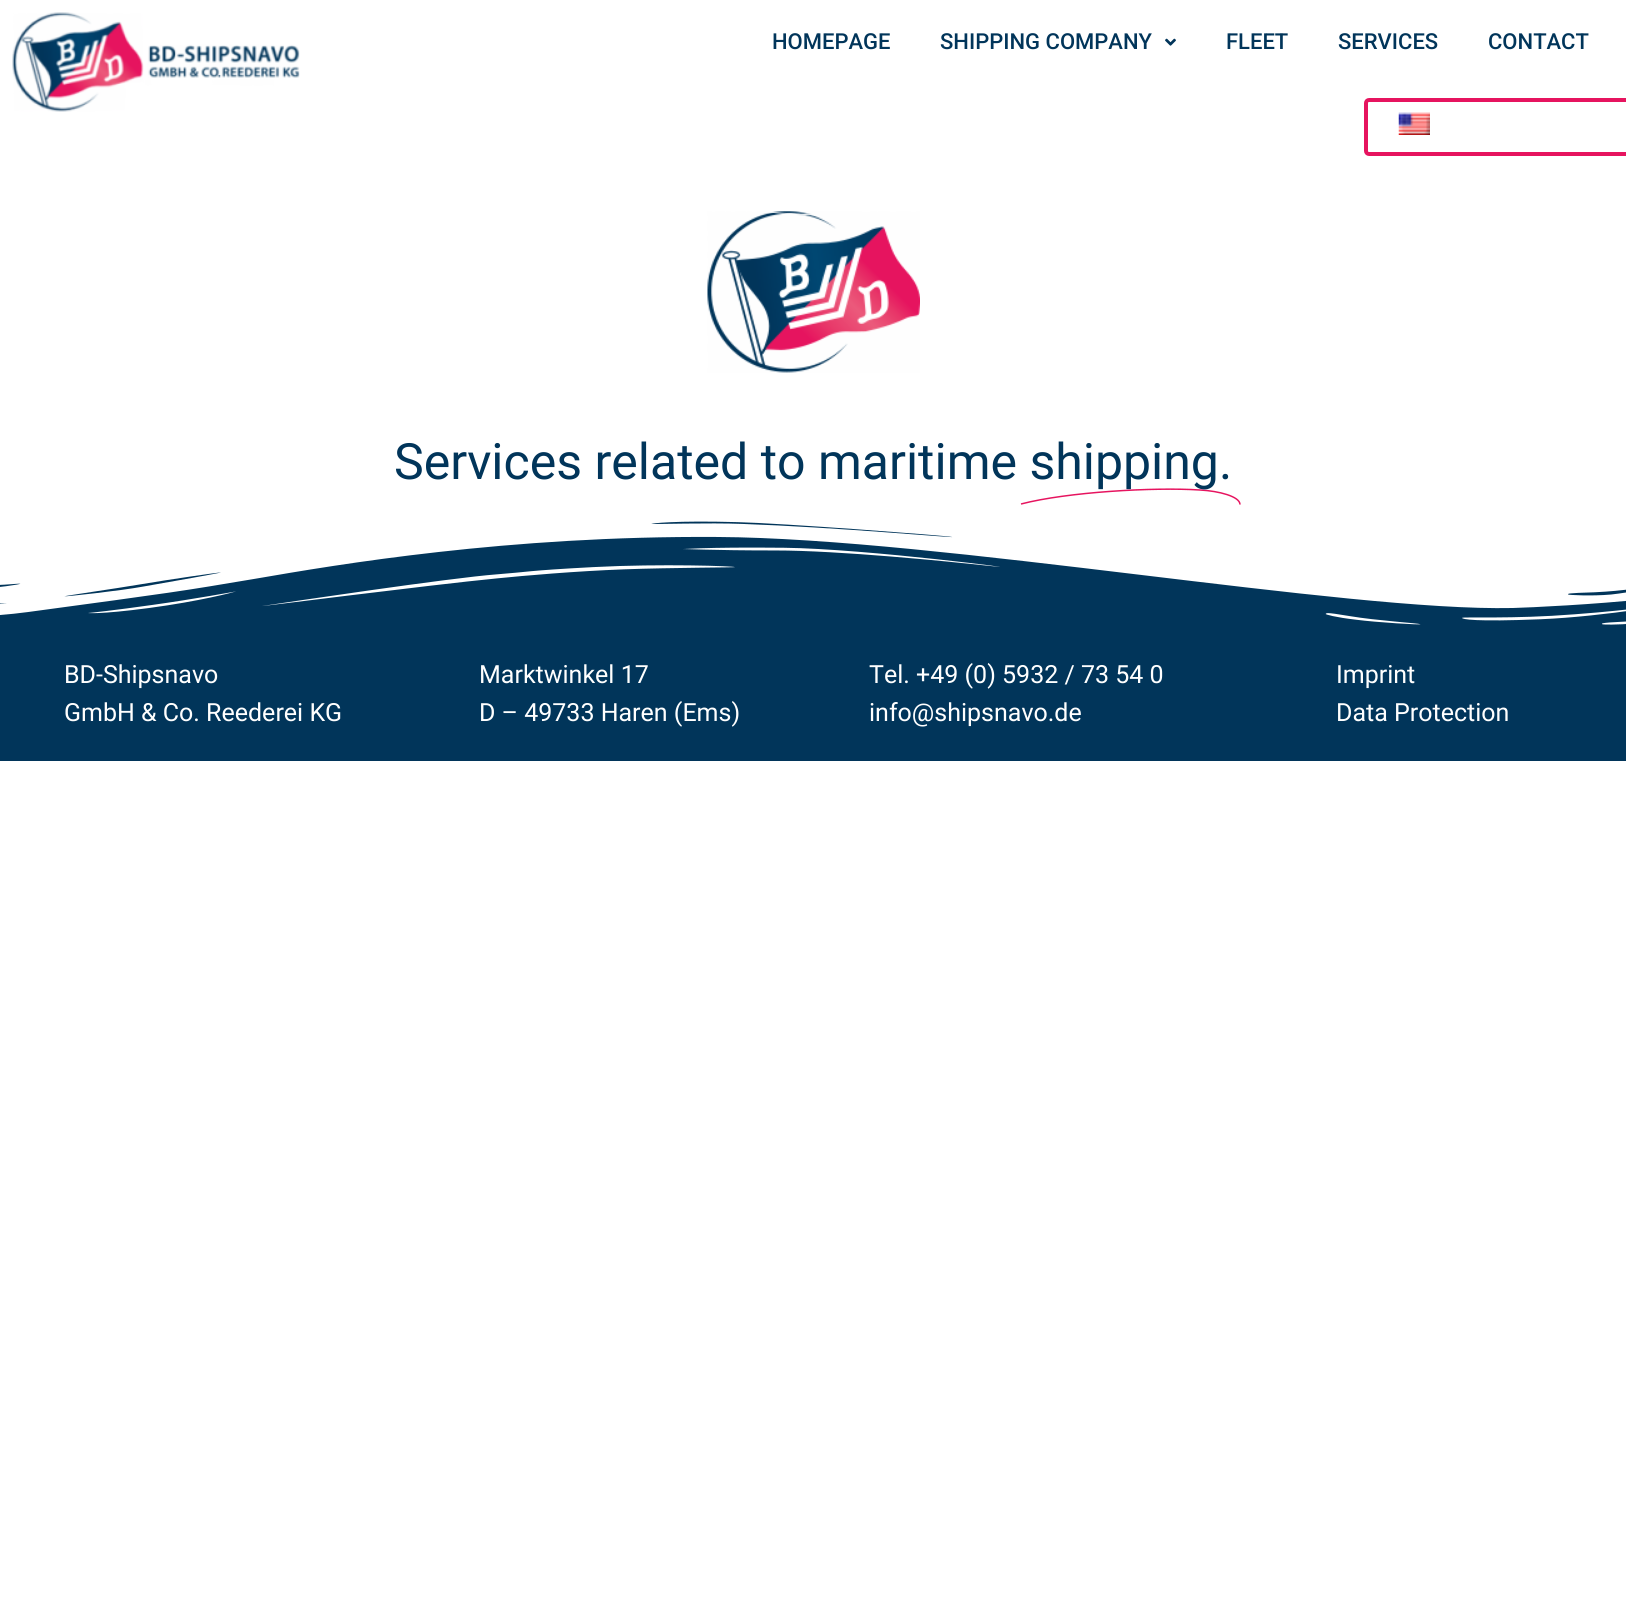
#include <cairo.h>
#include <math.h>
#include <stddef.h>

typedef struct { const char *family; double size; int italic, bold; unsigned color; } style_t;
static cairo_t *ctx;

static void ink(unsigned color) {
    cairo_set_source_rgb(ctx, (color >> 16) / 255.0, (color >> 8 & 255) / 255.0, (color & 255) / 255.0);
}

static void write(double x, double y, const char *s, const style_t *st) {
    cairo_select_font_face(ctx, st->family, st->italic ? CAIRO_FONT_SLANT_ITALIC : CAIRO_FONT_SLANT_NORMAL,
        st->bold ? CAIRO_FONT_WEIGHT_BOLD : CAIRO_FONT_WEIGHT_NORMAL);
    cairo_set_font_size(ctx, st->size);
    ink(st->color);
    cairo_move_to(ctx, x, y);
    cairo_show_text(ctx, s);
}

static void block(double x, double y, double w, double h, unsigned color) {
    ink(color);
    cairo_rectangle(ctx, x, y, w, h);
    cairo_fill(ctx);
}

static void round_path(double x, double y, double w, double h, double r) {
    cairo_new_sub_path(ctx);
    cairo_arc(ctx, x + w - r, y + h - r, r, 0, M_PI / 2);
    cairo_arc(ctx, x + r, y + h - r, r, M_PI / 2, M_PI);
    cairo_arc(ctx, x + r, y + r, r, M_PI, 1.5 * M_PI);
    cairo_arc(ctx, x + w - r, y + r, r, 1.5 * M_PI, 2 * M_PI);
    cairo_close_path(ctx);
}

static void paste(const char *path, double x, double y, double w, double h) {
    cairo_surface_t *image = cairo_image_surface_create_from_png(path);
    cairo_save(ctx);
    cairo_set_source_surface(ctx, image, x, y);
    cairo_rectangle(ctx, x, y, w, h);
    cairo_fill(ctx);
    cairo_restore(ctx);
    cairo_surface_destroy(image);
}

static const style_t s1 = {"Roboto Medium", 22, 0, 0, 0x01355a};
static const style_t s2 = {"Roboto", 50, 0, 0, 0x01355a};
static const style_t s3 = {"Roboto", 25, 0, 0, 0xffffff};

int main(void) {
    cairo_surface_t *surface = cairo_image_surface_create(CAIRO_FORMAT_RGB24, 1626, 1608);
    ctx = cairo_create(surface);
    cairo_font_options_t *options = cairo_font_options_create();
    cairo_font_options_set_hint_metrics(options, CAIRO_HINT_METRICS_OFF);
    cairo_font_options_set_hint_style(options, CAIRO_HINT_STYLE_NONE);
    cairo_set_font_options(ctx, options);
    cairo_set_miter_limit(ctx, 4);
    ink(0xffffff);
    cairo_paint(ctx);
    paste("pic1.png", 12, 12, 288, 100);
    write(772, 49, "HOMEPAGE", &s1);
    write(940, 49, "SHIPPING COMPANY", &s1);
    paste("pic2.png", 1165, 38, 11, 8);
    write(1226, 49, "FLEET", &s1);
    write(1338, 49, "SERVICES", &s1);
    write(1488, 49, "CONTACT", &s1);
    round_path(1366, 100, 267, 54, 3);
    ink(0xe6145f);
    cairo_set_line_width(ctx, 4);
    cairo_stroke(ctx);
    paste("pic3.png", 1398, 112, 32, 23);
    paste("pic5.png", 707, 211, 213, 162);
    paste("pic4.png", 767, 212, 48, 4);
    cairo_new_path(ctx);
    cairo_move_to(ctx, 1021, 504);
    cairo_curve_to(ctx, 1067, 492, 1154, 487, 1200, 490);
    cairo_curve_to(ctx, 1219, 491, 1240, 496.5, 1240, 504.5);
    cairo_set_line_width(ctx, 1.5);
    cairo_stroke(ctx);
    write(394, 479, "Services related to maritime shipping.", &s2);
    paste("pic6.png", 0, 521, 1626, 123);
    block(0, 644, 1626, 117, 0x01355a);
    write(64, 683, "BD-Shipsnavo", &s3);
    write(64, 721, "GmbH & Co. Reederei KG", &s3);
    write(479, 683, "Marktwinkel 17", &s3);
    write(479, 721, "D – 49733 Haren (Ems)", &s3);
    write(869, 683, "Tel. +49 (0) 5932 / 73 54 0", &s3);
    write(869, 721, "info@shipsnavo.de", &s3);
    write(1336, 683, "Imprint", &s3);
    write(1336, 721, "Data Protection", &s3);
    cairo_surface_write_to_png(surface, "screenshot.png");
    cairo_font_options_destroy(options);
    cairo_destroy(ctx);
    cairo_surface_destroy(surface);
    return 0;
}
